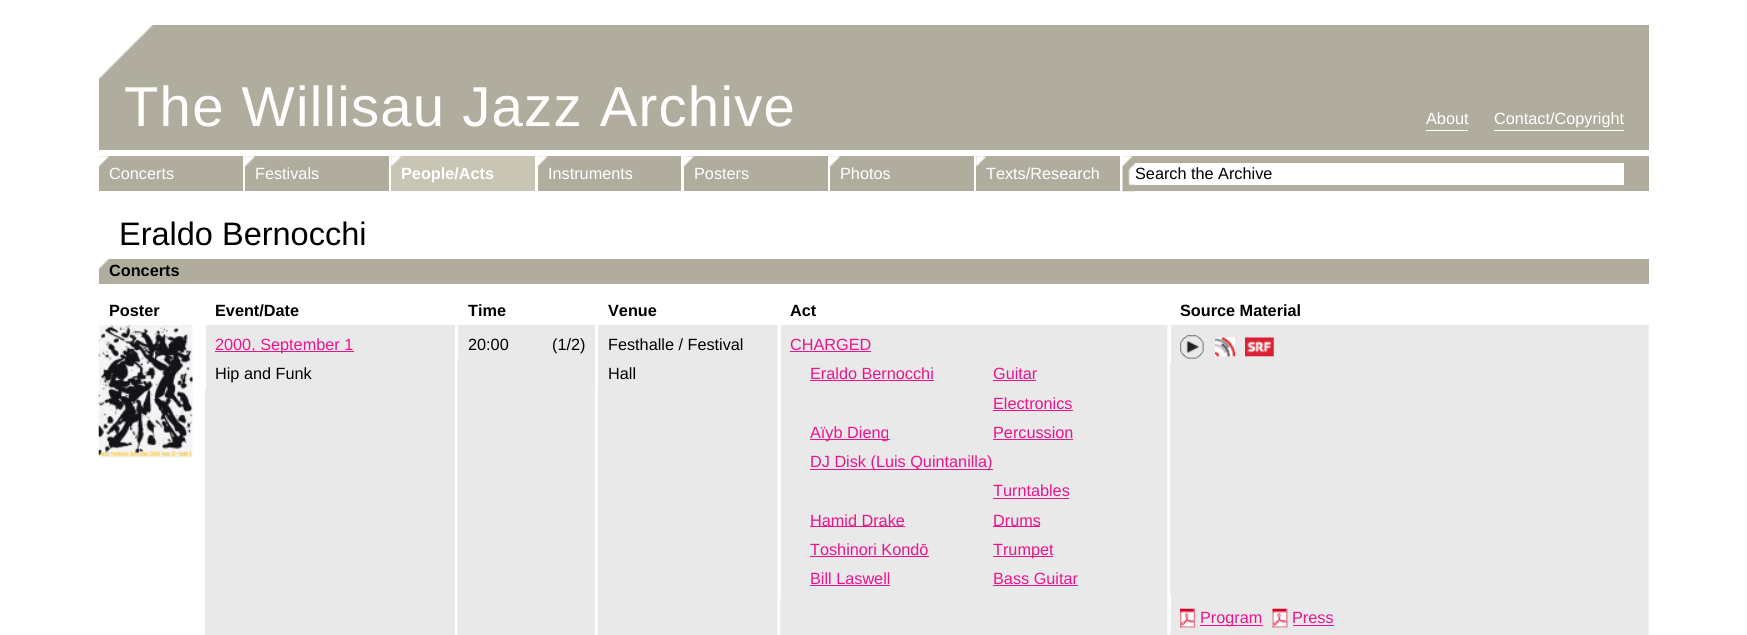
#include <cairo.h>
#include <math.h>
#include <stddef.h>

typedef struct { const char *family; double size; int italic, bold; unsigned color; } style_t;
static cairo_t *ctx;

static void ink(unsigned color) {
    cairo_set_source_rgb(ctx, (color >> 16) / 255.0, (color >> 8 & 255) / 255.0, (color & 255) / 255.0);
}

static void write(double x, double y, const char *s, const style_t *st) {
    cairo_select_font_face(ctx, st->family, st->italic ? CAIRO_FONT_SLANT_ITALIC : CAIRO_FONT_SLANT_NORMAL,
        st->bold ? CAIRO_FONT_WEIGHT_BOLD : CAIRO_FONT_WEIGHT_NORMAL);
    cairo_set_font_size(ctx, st->size);
    ink(st->color);
    cairo_move_to(ctx, x, y);
    cairo_show_text(ctx, s);
}

static void write_spaced(double x, double y, const char *s, double letter, double word) {
    cairo_move_to(ctx, x, y);
    while (*s) {
        char ch[5] = {0};
        int n = 0;
        do ch[n++] = *s++; while ((*s & 0xC0) == 0x80);
        cairo_show_text(ctx, ch);
        cairo_rel_move_to(ctx, letter + word * (*ch == ' '), 0);
    }
}

static void block(double x, double y, double w, double h, unsigned color) {
    ink(color);
    cairo_rectangle(ctx, x, y, w, h);
    cairo_fill(ctx);
}

static void paste(const char *path, double x, double y, double w, double h) {
    cairo_surface_t *image = cairo_image_surface_create_from_png(path);
    cairo_save(ctx);
    cairo_set_source_surface(ctx, image, x, y);
    cairo_rectangle(ctx, x, y, w, h);
    cairo_fill(ctx);
    cairo_restore(ctx);
    cairo_surface_destroy(image);
}

static const style_t s1 = {"Liberation Sans", 16.25, 0, 0, 0xffffff};
static const style_t s2 = {"Liberation Sans", 16.25, 0, 1, 0xffffff};
static const style_t s3 = {"Liberation Sans", 16.25, 0, 0, 0x000000};
static const style_t s4 = {"Liberation Sans", 32.5, 0, 0, 0x000000};
static const style_t s5 = {"Liberation Sans", 16.25, 0, 1, 0x000000};
static const style_t s6 = {"Liberation Sans", 16.25, 0, 0, 0xea148c};

int main(void) {
    cairo_surface_t *surface = cairo_image_surface_create(CAIRO_FORMAT_RGB24, 1747, 635);
    ctx = cairo_create(surface);
    cairo_font_options_t *options = cairo_font_options_create();
    cairo_font_options_set_hint_metrics(options, CAIRO_HINT_METRICS_OFF);
    cairo_font_options_set_hint_style(options, CAIRO_HINT_STYLE_NONE);
    cairo_set_font_options(ctx, options);
    cairo_set_miter_limit(ctx, 4);
    ink(0xffffff);
    cairo_paint(ctx);
    block(99, 25, 1550, 125, 0xb0ad9f);
    paste("pic1.png", 98, 25, 55, 54);
    cairo_select_font_face(ctx, "Liberation Sans", CAIRO_FONT_SLANT_NORMAL, CAIRO_FONT_WEIGHT_NORMAL);
    cairo_set_font_size(ctx, 56.25);
    ink(0xffffff);
    write_spaced(124, 126, "The Willisau Jazz Archive", 1.25, 0);
    write(1426, 124, "About", &s1);
    block(1426, 130, 42, 1, 0xffffff);
    write(1494, 124, "Contact/Copyright", &s1);
    block(1494, 130, 130, 1, 0xffffff);
    block(99, 156, 144, 35, 0xb0ad9f);
    paste("pic2.png", 98, 156, 11, 11);
    write(109, 179, "Concerts", &s1);
    block(245, 156, 144, 35, 0xb0ad9f);
    paste("pic3.png", 245, 156, 10, 11);
    write(255, 179, "Festivals", &s1);
    block(391, 156, 144, 35, 0xc8c5b5);
    paste("pic4.png", 391, 156, 11, 11);
    write(401, 179, "People/Acts", &s2);
    block(538, 156, 143, 35, 0xb0ad9f);
    paste("pic5.png", 537, 156, 11, 11);
    write(548, 179, "Instruments", &s1);
    block(684, 156, 144, 35, 0xb0ad9f);
    paste("pic2.png", 683, 156, 11, 11);
    write(694, 179, "Posters", &s1);
    block(830, 156, 144, 35, 0xb0ad9f);
    paste("pic6.png", 830, 156, 10, 11);
    write(840, 179, "Photos", &s1);
    block(976, 156, 144, 35, 0xb0ad9f);
    paste("pic7.png", 976, 156, 11, 11);
    write(986, 179, "Texts/Research", &s1);
    block(1123, 156, 526, 35, 0xb0ad9f);
    paste("pic8.png", 1122, 156, 13, 36);
    block(1135, 163, 489, 22, 0xffffff);
    write(1135, 179, "Search the Archive", &s3);
    write(119, 245, "Eraldo Bernocchi", &s4);
    block(99, 259, 1550, 25, 0xb0ad9f);
    paste("pic9.png", 98, 258, 11, 11);
    write(109, 276, "Concerts", &s5);
    write(109, 316, "Poster", &s5);
    write(215, 316, "Event/Date", &s5);
    write(468, 316, "Time", &s5);
    write(608, 316, "Venue", &s5);
    write(790, 316, "Act", &s5);
    write(1180, 316, "Source Material", &s5);
    paste("pic10.png", 205, 325, 1444, 310);
    paste("pic11.png", 98, 325, 95, 133);
    block(205, 325, 1, 64, 0xffffff);
    block(215, 351, 139, 1, 0xea148c);
    write(215, 350, "2000, September 1", &s6);
    write(215, 379, "Hip and Funk", &s3);
    block(457, 325, 1, 34, 0xffffff);
    write(468, 350, "20:00", &s3);
    write(552, 350, "(1/2)", &s3);
    block(597, 325, 1, 64, 0xffffff);
    write(608, 350, "Festhalle / Festival", &s3);
    write(608, 379, "Hall", &s3);
    block(780, 325, 1, 274, 0xffffff);
    write(790, 350, "CHARGED", &s6);
    block(790, 351, 81, 1, 0xea148c);
    write(810, 379, "Eraldo Bernocchi", &s6);
    block(810, 380, 124, 1, 0xea148c);
    write(993, 379, "Guitar", &s6);
    block(993, 380, 43, 1, 0xea148c);
    write(993, 409, "Electronics", &s6);
    block(993, 410, 80, 1, 0xea148c);
    block(810, 439, 80, 1, 0xea148c);
    write(810, 438, "Aïyb Dieng", &s6);
    write(993, 438, "Percussion", &s6);
    block(993, 439, 80, 1, 0xea148c);
    block(810, 469, 183, 1, 0xea148c);
    write(810, 467, "DJ Disk (Luis Quintanilla)", &s6);
    write(993, 496, "Turntables", &s6);
    block(993, 498, 76, 1, 0xea148c);
    block(810, 526, 95, 1, 0xea148c);
    write(810, 526, "Hamid Drake", &s6);
    block(993, 526, 47, 1, 0xea148c);
    write(993, 526, "Drums", &s6);
    write(810, 555, "Toshinori Kondō", &s6);
    block(810, 556, 119, 1, 0xea148c);
    block(993, 556, 60, 1, 0xea148c);
    write(993, 555, "Trumpet", &s6);
    write(810, 584, "Bill Laswell", &s6);
    block(810, 585, 80, 1, 0xea148c);
    write(993, 584, "Bass Guitar", &s6);
    block(993, 585, 85, 1, 0xea148c);
    block(1170, 325, 1, 38, 0xffffff);
    paste("pic12.png", 1180, 335, 24, 24);
    paste("pic13.png", 1215, 337, 20, 20);
    paste("pic14.png", 1245, 337, 29, 20);
    block(1170, 594, 1, 37, 0xffffff);
    paste("pic15.png", 1180, 608, 16, 20);
    block(1200, 625, 63, 1, 0xea148c);
    write(1200, 623, "Program", &s6);
    paste("pic16.png", 1272, 608, 16, 20);
    write(1292, 623, "Press", &s6);
    block(1293, 625, 41, 1, 0xea148c);
    cairo_surface_write_to_png(surface, "screenshot.png");
    cairo_font_options_destroy(options);
    cairo_destroy(ctx);
    cairo_surface_destroy(surface);
    return 0;
}
